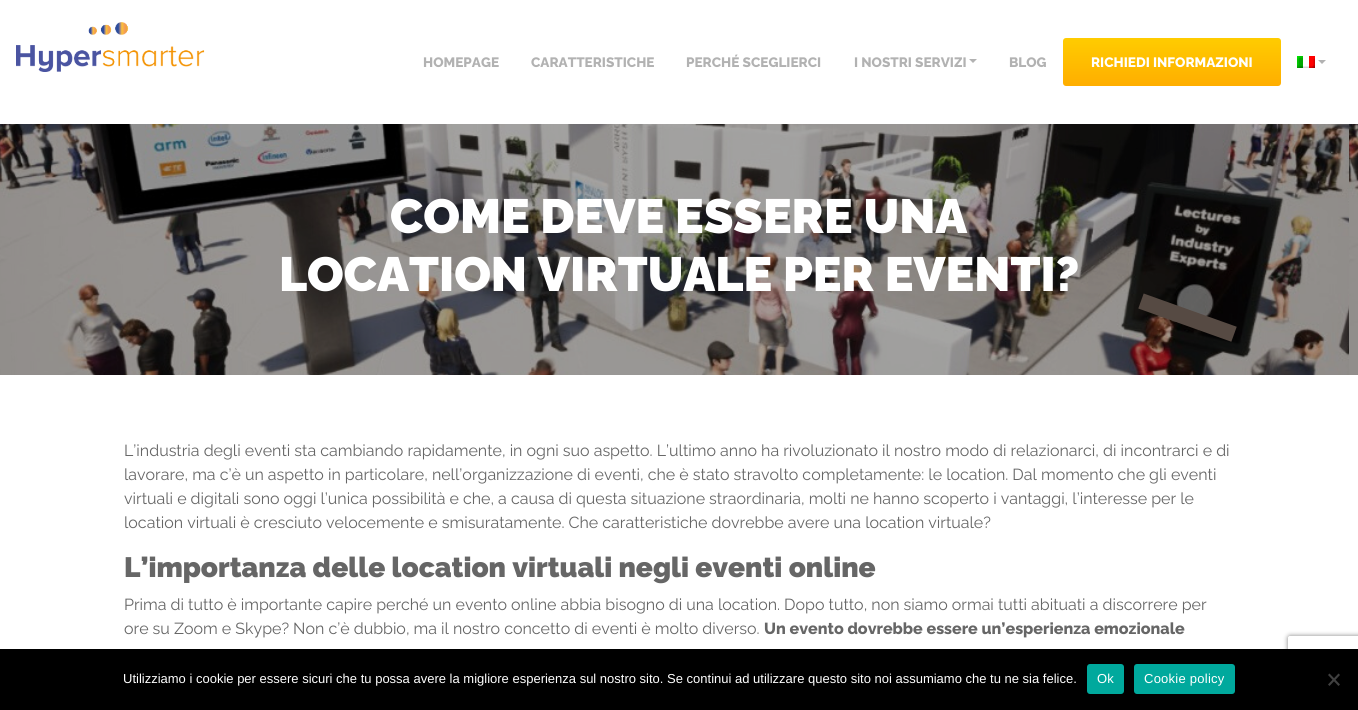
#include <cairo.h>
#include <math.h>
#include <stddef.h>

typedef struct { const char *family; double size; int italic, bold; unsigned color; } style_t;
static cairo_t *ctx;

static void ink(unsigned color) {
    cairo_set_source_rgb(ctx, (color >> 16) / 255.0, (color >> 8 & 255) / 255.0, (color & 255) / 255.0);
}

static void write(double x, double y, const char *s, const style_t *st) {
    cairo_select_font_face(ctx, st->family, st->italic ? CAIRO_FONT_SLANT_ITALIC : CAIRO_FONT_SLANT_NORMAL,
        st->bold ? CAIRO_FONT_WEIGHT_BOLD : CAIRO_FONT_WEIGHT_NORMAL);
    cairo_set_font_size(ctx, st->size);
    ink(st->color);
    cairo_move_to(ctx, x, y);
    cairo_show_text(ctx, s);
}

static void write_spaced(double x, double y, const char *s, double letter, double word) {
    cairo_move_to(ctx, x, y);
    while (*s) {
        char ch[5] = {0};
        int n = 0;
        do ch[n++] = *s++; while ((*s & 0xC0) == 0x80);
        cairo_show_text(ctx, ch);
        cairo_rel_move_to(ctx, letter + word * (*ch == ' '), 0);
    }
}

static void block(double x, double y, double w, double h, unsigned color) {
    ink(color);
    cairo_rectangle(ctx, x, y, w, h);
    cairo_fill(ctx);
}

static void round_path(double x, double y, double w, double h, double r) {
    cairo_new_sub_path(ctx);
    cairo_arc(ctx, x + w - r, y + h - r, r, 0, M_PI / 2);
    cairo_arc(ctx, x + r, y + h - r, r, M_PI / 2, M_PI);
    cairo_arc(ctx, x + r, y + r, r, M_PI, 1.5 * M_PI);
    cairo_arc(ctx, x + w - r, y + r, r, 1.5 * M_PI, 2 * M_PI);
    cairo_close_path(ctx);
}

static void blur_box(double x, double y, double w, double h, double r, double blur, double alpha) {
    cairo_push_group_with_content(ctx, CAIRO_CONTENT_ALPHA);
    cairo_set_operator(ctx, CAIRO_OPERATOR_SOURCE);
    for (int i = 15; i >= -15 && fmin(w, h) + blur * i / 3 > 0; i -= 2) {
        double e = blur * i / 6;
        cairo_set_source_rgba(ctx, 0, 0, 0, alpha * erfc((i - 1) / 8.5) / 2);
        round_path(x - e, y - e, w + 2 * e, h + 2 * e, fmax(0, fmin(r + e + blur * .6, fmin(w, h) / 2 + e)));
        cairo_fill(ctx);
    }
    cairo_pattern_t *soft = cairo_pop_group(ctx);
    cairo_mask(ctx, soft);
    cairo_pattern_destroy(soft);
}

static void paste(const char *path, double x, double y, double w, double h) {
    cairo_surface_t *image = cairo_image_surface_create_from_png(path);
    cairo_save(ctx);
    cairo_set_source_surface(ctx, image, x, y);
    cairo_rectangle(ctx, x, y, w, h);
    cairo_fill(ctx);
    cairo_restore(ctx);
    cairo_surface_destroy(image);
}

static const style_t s1 = {"Raleway ExtraBold", 13.6, 0, 0, 0xb2b2b2};
static const style_t s2 = {"Raleway ExtraBold", 13.6, 0, 0, 0xffffff};
static const style_t s3 = {"Raleway Black", 48, 0, 0, 0xffffff};
static const style_t s4 = {"Raleway", 16, 0, 0, 0x666666};
static const style_t s5 = {"Raleway Black", 28, 0, 0, 0x666666};
static const style_t s6 = {"Raleway ExtraBold", 16, 0, 0, 0x666666};
static const style_t s7 = {"Liberation Sans", 13, 0, 0, 0xffffff};

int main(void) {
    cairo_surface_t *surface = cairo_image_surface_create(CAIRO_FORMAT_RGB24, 1358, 710);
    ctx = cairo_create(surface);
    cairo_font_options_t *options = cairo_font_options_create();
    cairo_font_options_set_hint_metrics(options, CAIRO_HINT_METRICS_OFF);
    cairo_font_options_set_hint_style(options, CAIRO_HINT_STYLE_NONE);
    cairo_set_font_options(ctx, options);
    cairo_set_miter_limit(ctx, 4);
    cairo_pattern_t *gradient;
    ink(0xffffff);
    cairo_paint(ctx);
    paste("pic1.png", 16, 22, 189, 50);
    write(423, 67, "HOMEPAGE", &s1);
    write(531, 67, "CARATTERISTICHE", &s1);
    write(686, 67, "PERCHÉ SCEGLIERCI", &s1);
    write(854, 67, "I NOSTRI SERVIZI", &s1);
    cairo_new_path(ctx);
    cairo_move_to(ctx, 969, 59);
    cairo_line_to(ctx, 977, 59);
    cairo_line_to(ctx, 973, 63);
    cairo_close_path(ctx);
    cairo_fill(ctx);
    write(1009, 67, "BLOG", &s1);
    gradient = cairo_pattern_create_linear(1172, 86, 1172, 38);
    cairo_pattern_add_color_stop_rgba(gradient, 0, 1, 0.682, 0, 1);
    cairo_pattern_add_color_stop_rgba(gradient, 1, 1, 0.8, 0, 1);
    cairo_set_source(ctx, gradient);
    cairo_pattern_destroy(gradient);
    round_path(1063, 38, 218, 48, 3);
    cairo_fill(ctx);
    write(1091, 67, "RICHIEDI INFORMAZIONI", &s2);
    paste("pic2.png", 1297, 56, 18, 12);
    ink(0xb2b2b2);
    cairo_new_path(ctx);
    cairo_move_to(ctx, 1318, 60);
    cairo_line_to(ctx, 1326, 60);
    cairo_line_to(ctx, 1322, 64);
    cairo_close_path(ctx);
    cairo_fill(ctx);
    paste("pic3.png", 0, 124, 1358, 251);
    write(390, 233, "COME DEVE ESSERE UNA", &s3);
    write(279, 291, "LOCATION VIRTUALE PER EVENTI?", &s3);
    write(124, 456, "L’industria degli eventi sta cambiando rapidamente, in ogni suo aspetto. L’ultimo anno ha rivoluzionato il nostro modo di relazionarci, di incontrarci e di", &s4);
    write(124, 480, "lavorare, ma c’è un aspetto in particolare, nell’organizzazione di eventi, che è stato stravolto completamente: le location. Dal momento che gli eventi", &s4);
    write(124, 504, "virtuali e digitali sono oggi l’unica possibilità e che, a causa di questa situazione straordinaria, molti ne hanno scoperto i vantaggi, l’interesse per le", &s4);
    write(124, 528, "location virtuali è cresciuto velocemente e smisuratamente. Che caratteristiche dovrebbe avere una location virtuale?", &s4);
    write(124, 577, "L’importanza delle location virtuali negli eventi online", &s5);
    write(124, 610, "Prima di tutto è importante capire perché un evento online abbia bisogno di una location. Dopo tutto, non siamo ormai tutti abituati a discorrere per", &s4);
    write(124, 634, "ore su Zoom e Skype? Non c’è dubbio, ma il nostro concetto di eventi è molto diverso.", &s4);
    write(764, 634, "Un evento dovrebbe essere un’esperienza emozionale", &s6);
    cairo_save(ctx);
    cairo_set_fill_rule(ctx, CAIRO_FILL_RULE_EVEN_ODD);
    cairo_new_path(ctx);
    cairo_move_to(ctx, 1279, 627);
    cairo_line_to(ctx, 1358, 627);
    cairo_line_to(ctx, 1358, 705);
    cairo_line_to(ctx, 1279, 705);
    cairo_close_path(ctx);
    cairo_move_to(ctx, 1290, 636);
    cairo_line_to(ctx, 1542, 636);
    cairo_curve_to(ctx, 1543, 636, 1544, 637, 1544, 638);
    cairo_line_to(ctx, 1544, 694);
    cairo_curve_to(ctx, 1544, 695, 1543, 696, 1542, 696);
    cairo_line_to(ctx, 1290, 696);
    cairo_curve_to(ctx, 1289, 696, 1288, 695, 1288, 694);
    cairo_line_to(ctx, 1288, 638);
    cairo_curve_to(ctx, 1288, 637, 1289, 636, 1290, 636);
    cairo_close_path(ctx);
    cairo_clip(ctx);
    ink(0x808080);
    blur_box(1288, 636, 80, 60, 2, 2.5, 1);
    cairo_restore(ctx);
    block(0, 649, 1358, 61, 0x000000);
    write(123, 683, "Utilizziamo i cookie per essere sicuri che tu possa avere la migliore esperienza sul nostro sito. Se continui ad utilizzare questo sito noi assumiamo che tu ne sia felice.", &s7);
    ink(0x00a99d);
    round_path(1087, 664, 37, 30, 3);
    cairo_fill(ctx);
    ink(0xffffff);
    write_spaced(1097, 683, "Ok", 0.25, 0);
    ink(0x00a99d);
    round_path(1134, 664, 101, 30, 3);
    cairo_fill(ctx);
    ink(0xffffff);
    write_spaced(1144, 683, "Cookie policy", 0.25, 0);
    ink(0x404040);
    cairo_new_path(ctx);
    cairo_move_to(ctx, 1338.5, 673.5);
    cairo_line_to(ctx, 1340, 675);
    cairo_line_to(ctx, 1329.5, 686);
    cairo_line_to(ctx, 1328, 684.5);
    cairo_close_path(ctx);
    cairo_fill(ctx);
    cairo_new_path(ctx);
    cairo_move_to(ctx, 1328, 675);
    cairo_line_to(ctx, 1329.5, 673.5);
    cairo_line_to(ctx, 1340, 684.5);
    cairo_line_to(ctx, 1338.5, 686);
    cairo_close_path(ctx);
    cairo_fill(ctx);
    cairo_surface_write_to_png(surface, "screenshot.png");
    cairo_font_options_destroy(options);
    cairo_destroy(ctx);
    cairo_surface_destroy(surface);
    return 0;
}
